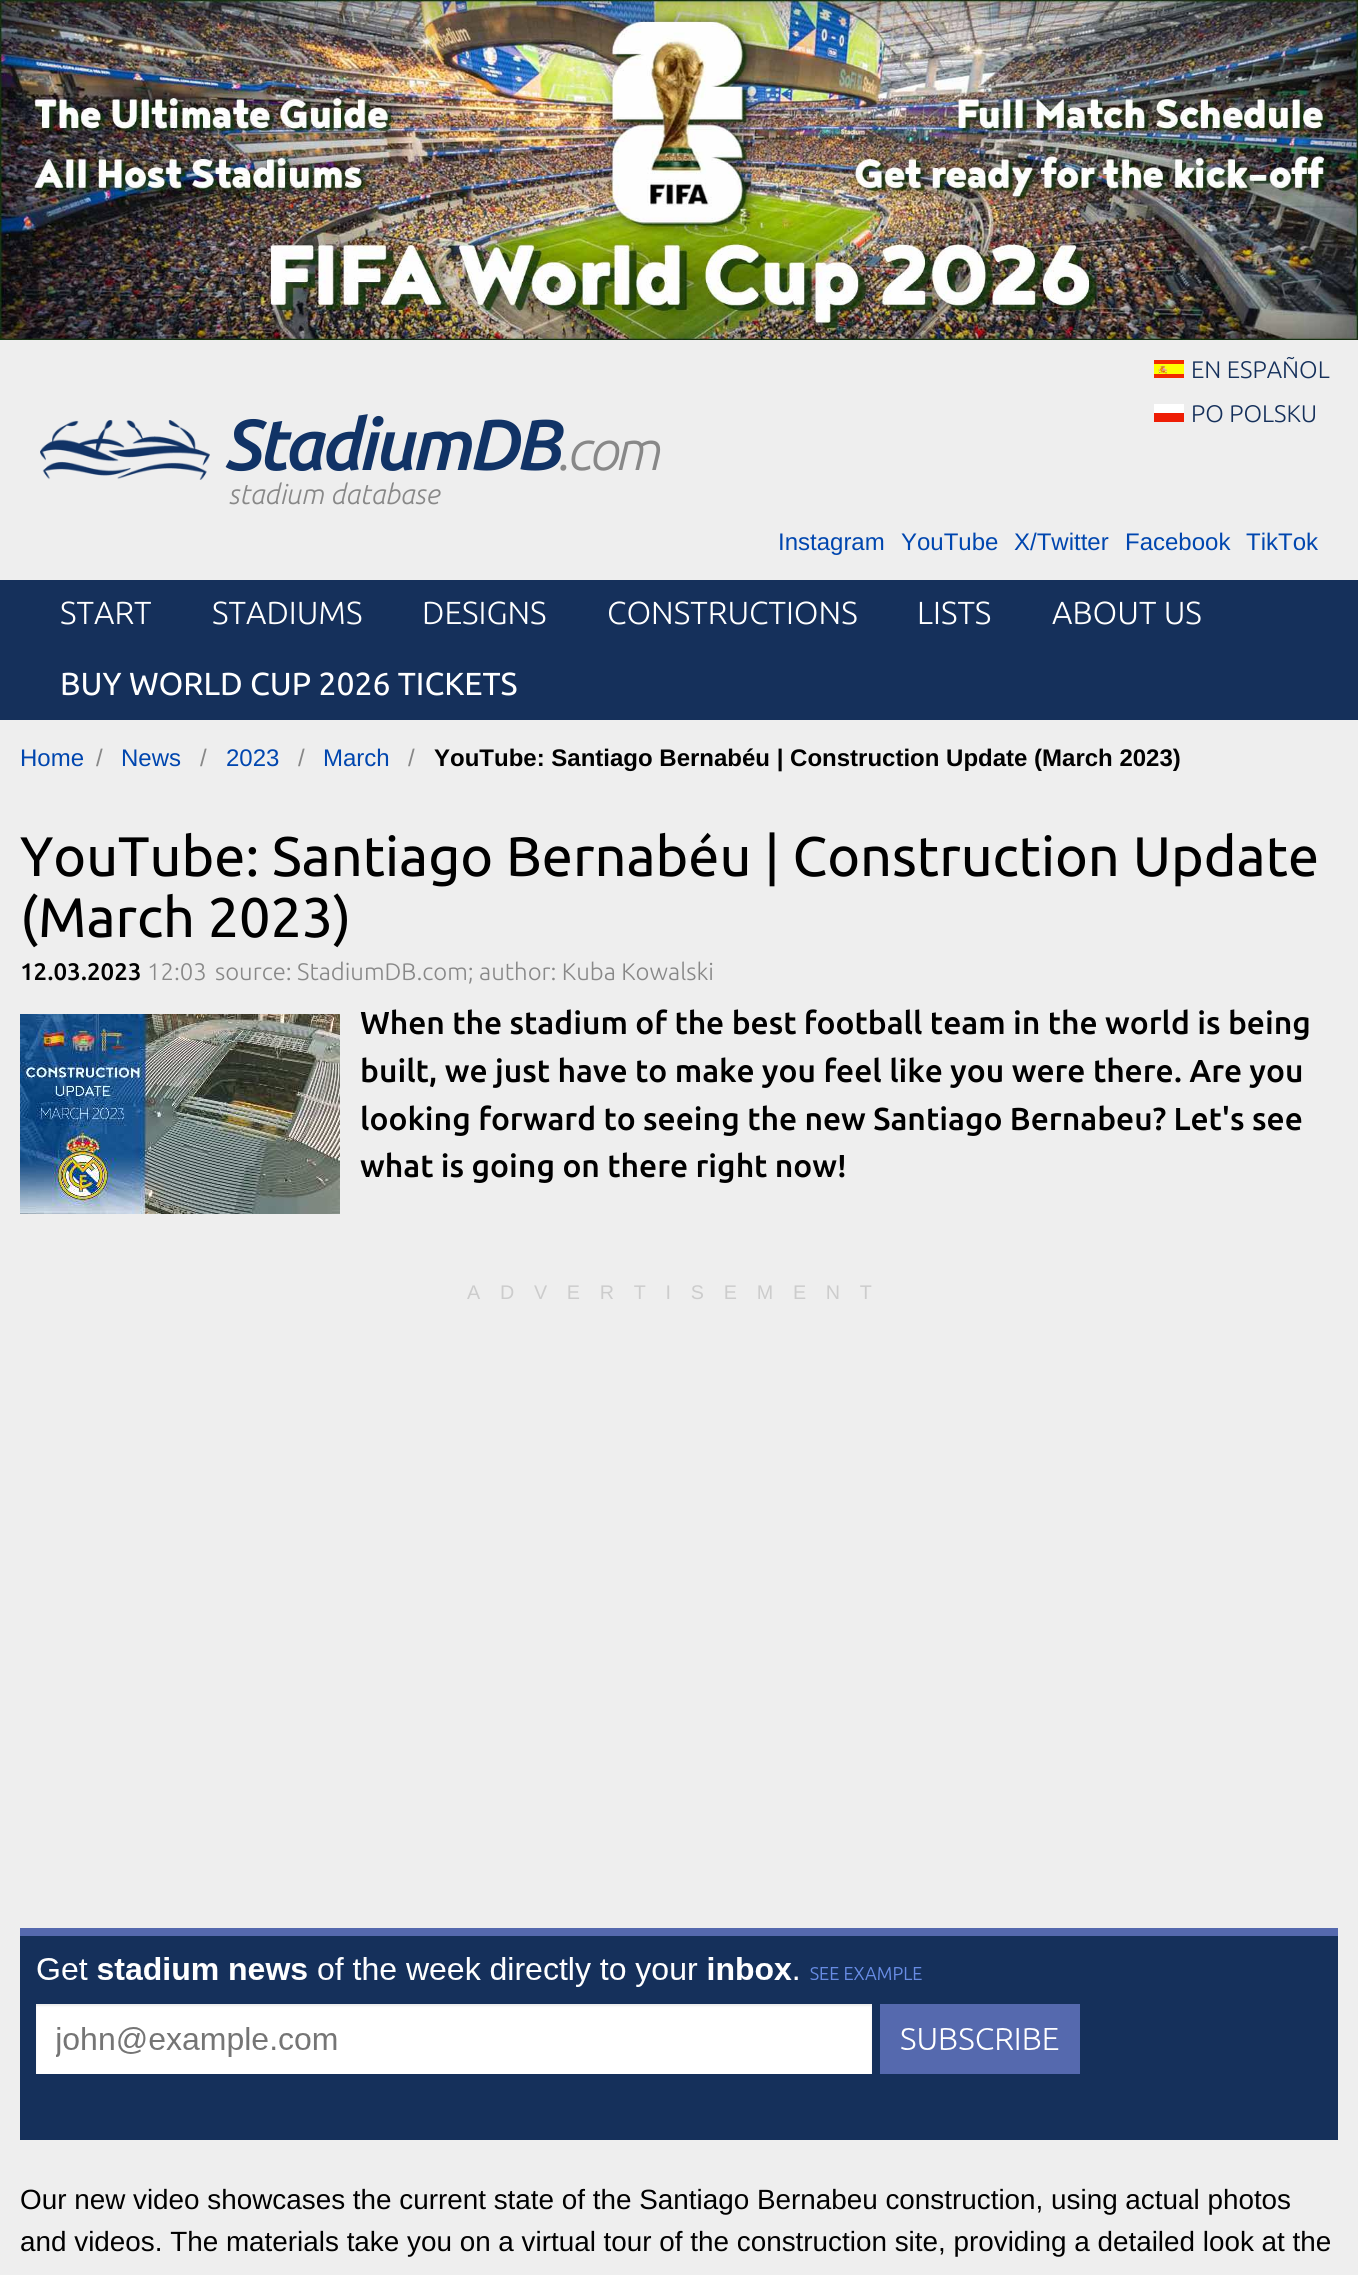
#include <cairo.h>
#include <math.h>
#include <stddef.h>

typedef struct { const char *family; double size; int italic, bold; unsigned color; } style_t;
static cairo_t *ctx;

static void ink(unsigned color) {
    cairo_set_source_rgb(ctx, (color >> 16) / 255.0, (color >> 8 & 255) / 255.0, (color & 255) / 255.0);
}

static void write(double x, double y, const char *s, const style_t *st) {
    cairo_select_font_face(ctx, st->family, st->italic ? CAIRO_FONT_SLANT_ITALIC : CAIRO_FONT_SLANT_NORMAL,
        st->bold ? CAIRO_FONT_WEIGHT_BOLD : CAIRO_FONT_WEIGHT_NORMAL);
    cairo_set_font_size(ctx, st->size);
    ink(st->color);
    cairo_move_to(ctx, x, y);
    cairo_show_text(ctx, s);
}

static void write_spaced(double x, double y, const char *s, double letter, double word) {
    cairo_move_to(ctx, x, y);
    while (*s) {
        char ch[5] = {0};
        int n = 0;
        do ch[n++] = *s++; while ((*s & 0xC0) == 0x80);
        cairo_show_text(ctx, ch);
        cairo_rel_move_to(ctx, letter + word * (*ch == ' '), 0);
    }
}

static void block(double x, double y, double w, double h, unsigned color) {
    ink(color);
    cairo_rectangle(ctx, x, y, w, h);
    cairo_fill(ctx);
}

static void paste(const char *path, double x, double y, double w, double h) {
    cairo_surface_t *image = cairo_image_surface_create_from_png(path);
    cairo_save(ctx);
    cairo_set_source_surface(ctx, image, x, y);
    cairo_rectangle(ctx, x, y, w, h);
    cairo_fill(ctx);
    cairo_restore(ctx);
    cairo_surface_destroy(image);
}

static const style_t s1 = {"Ubuntu Light", 24, 0, 0, 0x15305b};
static const style_t s2 = {"Ubuntu Light", 28, 1, 0, 0x888888};
static const style_t s3 = {"Liberation Sans", 24, 0, 0, 0x0046af};
static const style_t s4 = {"Ubuntu Light", 31.9, 0, 0, 0xffffff};
static const style_t s5 = {"Ubuntu", 31.9, 0, 0, 0xffffff};
static const style_t s6 = {"Liberation Sans", 24, 0, 0, 0x888888};
static const style_t s7 = {"Liberation Sans", 24, 0, 1, 0x000000};
static const style_t s8 = {"Ubuntu", 55.7, 0, 0, 0x000000};
static const style_t s9 = {"Ubuntu Medium", 23.9, 0, 0, 0x000000};
static const style_t s10 = {"Ubuntu Light", 23.9, 0, 0, 0x888888};
static const style_t s11 = {"Ubuntu Medium", 31.75, 0, 0, 0x000000};
static const style_t s12 = {"Liberation Sans", 27.85, 0, 0, 0x000000};

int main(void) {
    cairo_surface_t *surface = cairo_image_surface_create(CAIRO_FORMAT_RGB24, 1358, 2275);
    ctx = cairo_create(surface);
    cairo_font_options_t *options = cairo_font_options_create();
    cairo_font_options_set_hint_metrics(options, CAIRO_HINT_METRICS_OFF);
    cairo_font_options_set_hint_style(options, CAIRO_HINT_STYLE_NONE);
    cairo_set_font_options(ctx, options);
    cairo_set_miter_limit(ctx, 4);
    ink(0xffffff);
    cairo_paint(ctx);
    paste("pic1.png", 0, 0, 1358, 340);
    block(0, 340, 1358, 1935, 0xeeeeee);
    paste("pic2.png", 1154, 360, 30, 18);
    write(1191, 378, "EN ESPAÑOL", &s1);
    paste("pic3.png", 1154, 404, 30, 18);
    write(1191, 422, "PO POLSKU", &s1);
    paste("pic4.png", 40, 420, 170, 60);
    cairo_select_font_face(ctx, "Ubuntu Medium", CAIRO_FONT_SLANT_ITALIC, CAIRO_FONT_WEIGHT_NORMAL);
    cairo_set_font_size(ctx, 72);
    ink(0x113366);
    write_spaced(223, 470, "StadiumDB", -3.5, 0);
    cairo_select_font_face(ctx, "Ubuntu Light", CAIRO_FONT_SLANT_ITALIC, CAIRO_FONT_WEIGHT_NORMAL);
    cairo_set_font_size(ctx, 56);
    ink(0x888888);
    write_spaced(556, 470, ".com", -3.5, 0);
    write(228, 504, "stadium database", &s2);
    write(778, 550, "Instagram", &s3);
    write(901, 550, "YouTube", &s3);
    write(1014, 550, "X/Twitter", &s3);
    write(1125, 550, "Facebook", &s3);
    write(1246, 550, "TikTok", &s3);
    block(0, 580, 1358, 140, 0x15305b);
    write(60, 624, "START", &s4);
    write(212, 624, "STADIUMS", &s4);
    write(422, 624, "DESIGNS", &s4);
    write(607, 624, "CONSTRUCTIONS", &s4);
    write(917, 624, "LISTS", &s4);
    write(1052, 624, "ABOUT US", &s4);
    write(60, 695, "BUY WORLD CUP 2026 TICKETS", &s5);
    write(20, 766, "Home", &s3);
    write(96, 766, "/", &s6);
    write(121, 766, "News", &s3);
    write(200, 766, "/", &s6);
    write(226, 766, "2023", &s3);
    write(298, 766, "/", &s6);
    write(323, 766, "March", &s3);
    write(408, 766, "/", &s6);
    write(434, 766, "YouTube: Santiago Bernabéu | Construction Update (March 2023)", &s7);
    write(20, 876, "YouTube: Santiago Bernabéu | Construction Update", &s8);
    write(20, 937, "(March 2023)", &s8);
    write(20, 980, "12.03.2023", &s9);
    write(147, 980, "12:03", &s10);
    write(215, 980, "source: StadiumDB.com; author: Kuba Kowalski", &s10);
    paste("pic5.png", 20, 1014, 320, 200);
    write(360, 1034, "When the stadium of the best football team in the world is being", &s11);
    write(360, 1082, "built, we just have to make you feel like you were there. Are you", &s11);
    write(360, 1130, "looking forward to seeing the new Santiago Bernabeu? Let's see", &s11);
    write(360, 1177, "what is going on there right now!", &s11);
    cairo_select_font_face(ctx, "Liberation Sans", CAIRO_FONT_SLANT_NORMAL, CAIRO_FONT_WEIGHT_NORMAL);
    cairo_set_font_size(ctx, 19.75);
    ink(0xcccccc);
    write_spaced(467, 1299, "ADVERTISEMENT", 19.75, 0);
    paste("pic6.png", 20, 1928, 1318, 212);
    write(20, 2209, "Our new video showcases the current state of the Santiago Bernabeu construction, using actual photos", &s12);
    write(20, 2251, "and videos. The materials take you on a virtual tour of the construction site, providing a detailed look at the", &s12);
    cairo_surface_write_to_png(surface, "screenshot.png");
    cairo_font_options_destroy(options);
    cairo_destroy(ctx);
    cairo_surface_destroy(surface);
    return 0;
}
